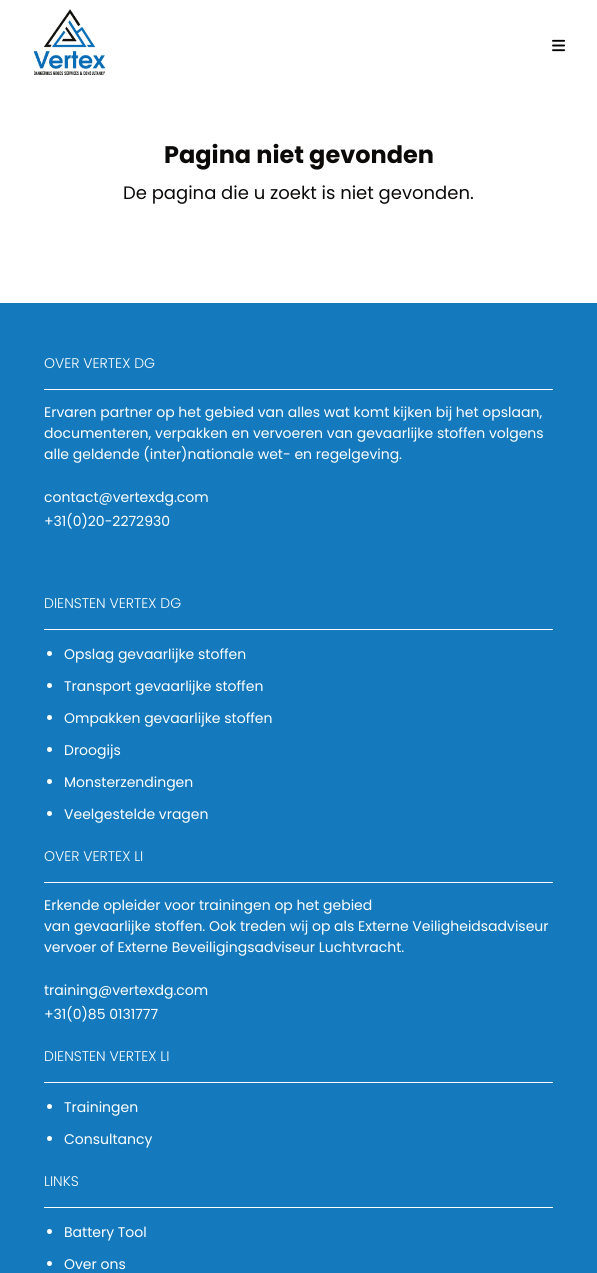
#include <cairo.h>
#include <math.h>
#include <stddef.h>

typedef struct { const char *family; double size; int italic, bold; unsigned color; } style_t;
static cairo_t *ctx;

static void ink(unsigned color) {
    cairo_set_source_rgb(ctx, (color >> 16) / 255.0, (color >> 8 & 255) / 255.0, (color & 255) / 255.0);
}

static void write(double x, double y, const char *s, const style_t *st) {
    cairo_select_font_face(ctx, st->family, st->italic ? CAIRO_FONT_SLANT_ITALIC : CAIRO_FONT_SLANT_NORMAL,
        st->bold ? CAIRO_FONT_WEIGHT_BOLD : CAIRO_FONT_WEIGHT_NORMAL);
    cairo_set_font_size(ctx, st->size);
    ink(st->color);
    cairo_move_to(ctx, x, y);
    cairo_show_text(ctx, s);
}

static void block(double x, double y, double w, double h, unsigned color) {
    ink(color);
    cairo_rectangle(ctx, x, y, w, h);
    cairo_fill(ctx);
}

static void paste(const char *path, double x, double y, double w, double h) {
    cairo_surface_t *image = cairo_image_surface_create_from_png(path);
    cairo_save(ctx);
    cairo_set_source_surface(ctx, image, x, y);
    cairo_rectangle(ctx, x, y, w, h);
    cairo_fill(ctx);
    cairo_restore(ctx);
    cairo_surface_destroy(image);
}

static const style_t s1 = {"Poppins", 24, 0, 1, 0x0c0a09};
static const style_t s2 = {"Poppins", 18, 0, 0, 0x0c0a09};
static const style_t s3 = {"Poppins Light", 14, 0, 0, 0xffffff};
static const style_t s4 = {"Poppins", 14, 0, 0, 0xffffff};

int main(void) {
    cairo_surface_t *surface = cairo_image_surface_create(CAIRO_FORMAT_RGB24, 597, 1273);
    ctx = cairo_create(surface);
    cairo_font_options_t *options = cairo_font_options_create();
    cairo_font_options_set_hint_metrics(options, CAIRO_HINT_METRICS_OFF);
    cairo_font_options_set_hint_style(options, CAIRO_HINT_STYLE_NONE);
    cairo_set_font_options(ctx, options);
    cairo_set_miter_limit(ctx, 4);
    ink(0xffffff);
    cairo_paint(ctx);
    paste("pic1.png", 33, 9, 73, 66);
    paste("pic2.png", 552, 39, 13, 13);
    write(164, 163, "Pagina niet gevonden", &s1);
    write(123, 199, "De pagina die u zoekt is niet gevonden.", &s2);
    block(0, 303, 597, 970, 0x157abd);
    block(44, 389, 509, 1, 0xffffff);
    write(44, 368, "OVER VERTEX DG", &s3);
    write(44, 417, "Ervaren partner op het gebied van alles wat komt kijken bij het opslaan,", &s4);
    write(44, 438, "documenteren, verpakken en vervoeren van gevaarlijke stoffen volgens", &s4);
    write(44, 459, "alle geldende (inter)nationale wet- en regelgeving.", &s4);
    write(44, 502, "contact@vertexdg.com", &s4);
    write(44, 526, "+31(0)20-2272930", &s4);
    block(44, 629, 509, 1, 0xffffff);
    write(44, 608, "DIENSTEN VERTEX DG", &s3);
    cairo_new_path(ctx);
    cairo_arc(ctx, 49.5, 653.5, 2.5, 0, 2 * M_PI);
    cairo_fill(ctx);
    write(64, 659, "Opslag gevaarlijke stoffen", &s4);
    cairo_new_path(ctx);
    cairo_arc(ctx, 49.5, 685.5, 2.5, 0, 2 * M_PI);
    cairo_fill(ctx);
    write(64, 691, "Transport gevaarlijke stoffen", &s4);
    cairo_new_path(ctx);
    cairo_arc(ctx, 49.5, 717.5, 2.5, 0, 2 * M_PI);
    cairo_fill(ctx);
    write(64, 723, "Ompakken gevaarlijke stoffen", &s4);
    cairo_new_path(ctx);
    cairo_arc(ctx, 49.5, 749.5, 2.5, 0, 2 * M_PI);
    cairo_fill(ctx);
    write(64, 755, "Droogijs", &s4);
    cairo_new_path(ctx);
    cairo_arc(ctx, 49.5, 781.5, 2.5, 0, 2 * M_PI);
    cairo_fill(ctx);
    write(64, 787, "Monsterzendingen", &s4);
    cairo_new_path(ctx);
    cairo_arc(ctx, 49.5, 813.5, 2.5, 0, 2 * M_PI);
    cairo_fill(ctx);
    write(64, 819, "Veelgestelde vragen", &s4);
    block(44, 882, 509, 1, 0xffffff);
    write(44, 861, "OVER VERTEX LI", &s3);
    write(44, 910, "Erkende opleider voor trainingen op het gebied", &s4);
    write(44, 931, "van gevaarlijke stoffen. Ook treden wij op als Externe Veiligheidsadviseur", &s4);
    write(44, 952, "vervoer of Externe Beveiligingsadviseur Luchtvracht.", &s4);
    write(44, 995, "training@vertexdg.com", &s4);
    write(44, 1019, "+31(0)85 0131777", &s4);
    block(44, 1082, 509, 1, 0xffffff);
    write(44, 1061, "DIENSTEN VERTEX LI", &s3);
    cairo_new_path(ctx);
    cairo_arc(ctx, 49.5, 1106.5, 2.5, 0, 2 * M_PI);
    cairo_fill(ctx);
    write(64, 1112, "Trainingen", &s4);
    cairo_new_path(ctx);
    cairo_arc(ctx, 49.5, 1138.5, 2.5, 0, 2 * M_PI);
    cairo_fill(ctx);
    write(64, 1144, "Consultancy", &s4);
    block(44, 1207, 509, 1, 0xffffff);
    write(44, 1186, "LINKS", &s3);
    cairo_new_path(ctx);
    cairo_arc(ctx, 49.5, 1231.5, 2.5, 0, 2 * M_PI);
    cairo_fill(ctx);
    write(64, 1237, "Battery Tool", &s4);
    cairo_new_path(ctx);
    cairo_arc(ctx, 49.5, 1263.5, 2.5, 0, 2 * M_PI);
    cairo_fill(ctx);
    write(64, 1269, "Over ons", &s4);
    cairo_surface_write_to_png(surface, "screenshot.png");
    cairo_font_options_destroy(options);
    cairo_destroy(ctx);
    cairo_surface_destroy(surface);
    return 0;
}
